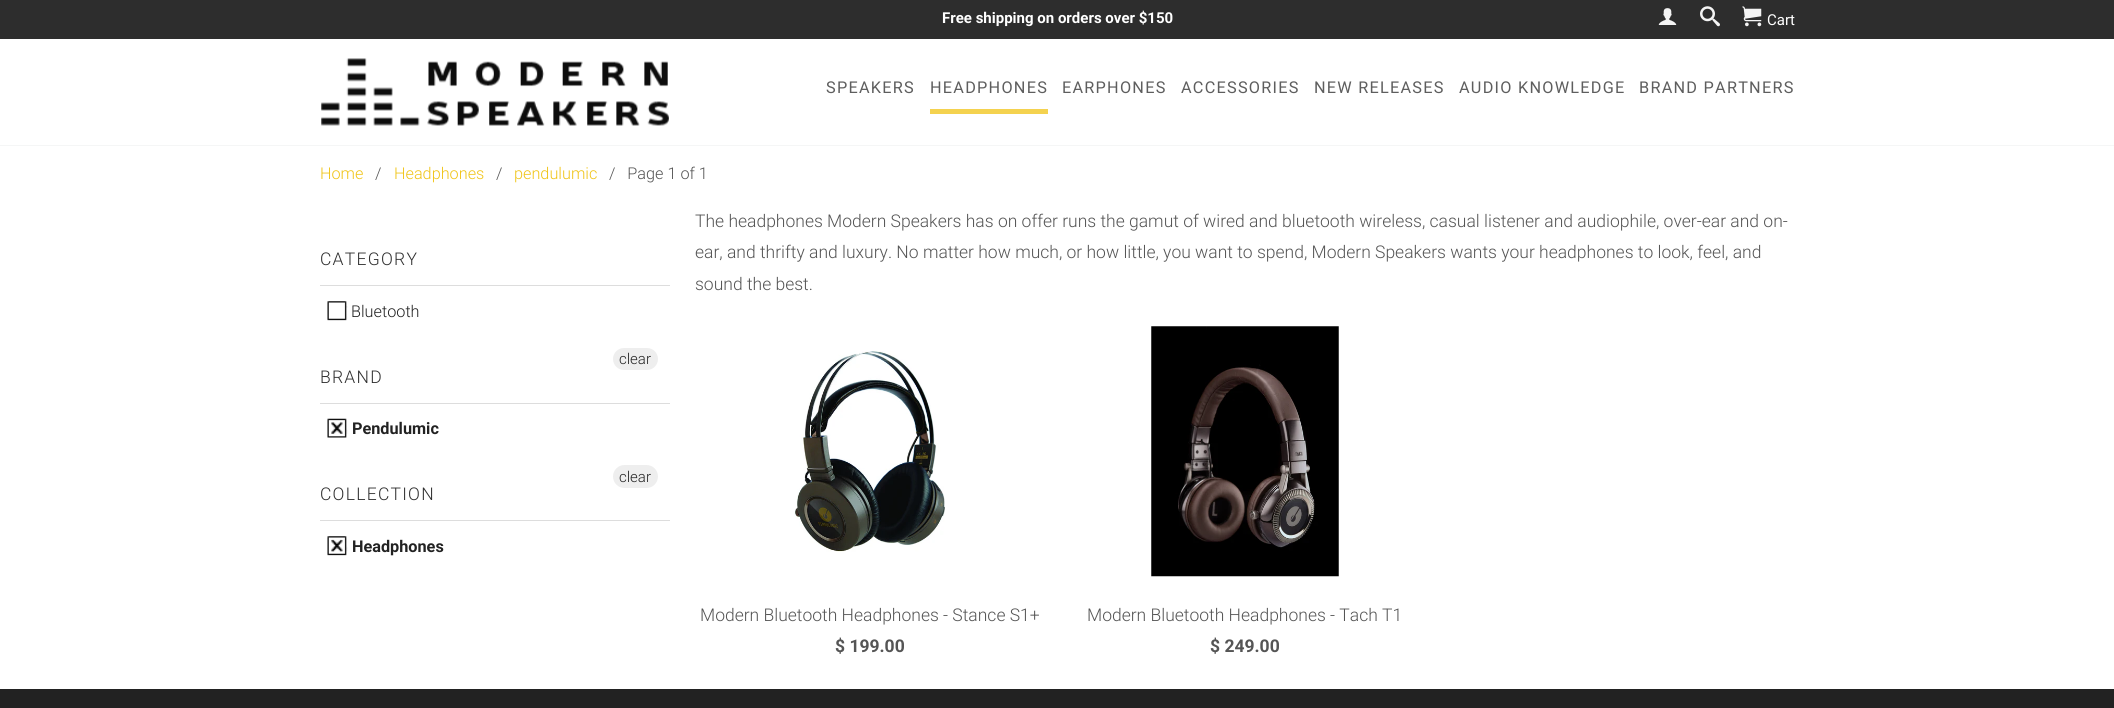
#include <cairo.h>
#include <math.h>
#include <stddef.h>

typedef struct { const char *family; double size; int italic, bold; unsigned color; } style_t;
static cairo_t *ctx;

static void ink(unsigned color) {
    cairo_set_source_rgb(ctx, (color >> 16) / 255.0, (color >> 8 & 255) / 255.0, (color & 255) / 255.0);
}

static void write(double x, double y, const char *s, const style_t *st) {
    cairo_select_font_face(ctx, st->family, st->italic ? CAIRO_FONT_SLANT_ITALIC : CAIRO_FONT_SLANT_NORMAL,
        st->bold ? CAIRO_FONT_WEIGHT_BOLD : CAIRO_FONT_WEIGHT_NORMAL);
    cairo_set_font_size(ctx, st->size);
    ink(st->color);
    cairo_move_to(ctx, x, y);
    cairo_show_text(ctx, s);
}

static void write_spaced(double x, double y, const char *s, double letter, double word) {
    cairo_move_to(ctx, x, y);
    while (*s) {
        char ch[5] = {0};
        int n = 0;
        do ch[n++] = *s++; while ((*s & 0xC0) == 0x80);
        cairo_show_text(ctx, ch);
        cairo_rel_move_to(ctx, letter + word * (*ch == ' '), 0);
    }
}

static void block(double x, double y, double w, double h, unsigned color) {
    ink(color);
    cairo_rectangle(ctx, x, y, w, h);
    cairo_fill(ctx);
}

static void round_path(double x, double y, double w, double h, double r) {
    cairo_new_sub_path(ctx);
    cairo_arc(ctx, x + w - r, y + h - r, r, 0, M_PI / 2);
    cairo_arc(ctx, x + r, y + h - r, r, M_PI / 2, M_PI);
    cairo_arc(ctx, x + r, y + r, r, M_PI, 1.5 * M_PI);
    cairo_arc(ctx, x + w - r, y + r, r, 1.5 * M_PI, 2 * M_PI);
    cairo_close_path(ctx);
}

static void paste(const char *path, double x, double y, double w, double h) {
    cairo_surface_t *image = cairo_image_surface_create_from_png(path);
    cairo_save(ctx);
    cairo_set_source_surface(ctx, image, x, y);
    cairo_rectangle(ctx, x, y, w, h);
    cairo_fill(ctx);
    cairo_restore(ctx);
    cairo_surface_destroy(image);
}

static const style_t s1 = {"Roboto", 15, 0, 1, 0xffffff};
static const style_t s2 = {"Roboto", 15, 0, 0, 0xffffff};
static const style_t s3 = {"Roboto Light", 16.25, 0, 0, 0xf0c417};
static const style_t s4 = {"Roboto Light", 16.25, 0, 0, 0x555555};
static const style_t s5 = {"Roboto Light", 16.25, 0, 0, 0x222222};
static const style_t s6 = {"Roboto Light", 15, 0, 0, 0x222222};
static const style_t s7 = {"Roboto", 16.25, 0, 1, 0x222222};
static const style_t s8 = {"Roboto Light", 17.5, 0, 0, 0x555555};
static const style_t s9 = {"Roboto", 17.5, 0, 1, 0x555555};

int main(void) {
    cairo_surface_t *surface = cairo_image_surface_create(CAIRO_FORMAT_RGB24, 2114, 708);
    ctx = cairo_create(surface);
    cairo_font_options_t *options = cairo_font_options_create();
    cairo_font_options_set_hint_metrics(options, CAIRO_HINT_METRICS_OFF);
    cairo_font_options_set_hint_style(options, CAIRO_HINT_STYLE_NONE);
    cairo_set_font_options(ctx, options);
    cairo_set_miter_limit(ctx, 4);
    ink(0xffffff);
    cairo_paint(ctx);
    block(0, 145, 2114, 1, 0xf5f6f6);
    block(0, 0, 2114, 39, 0x2d2d2d);
    write(942, 23, "Free shipping on orders over $150", &s1);
    paste("pic1.png", 1658, 8, 19, 17);
    paste("pic2.png", 1700, 6, 20, 21);
    paste("pic3.png", 1742, 6, 20, 21);
    write(1767, 25, "Cart", &s2);
    paste("pic4.png", 321, 58, 348, 68);
    cairo_set_font_size(ctx, 16.25);
    ink(0x5e5e5e);
    write_spaced(826, 93, "SPEAKERS", 1.25, 0);
    write_spaced(930, 93, "HEADPHONES", 1.25, 0);
    block(930, 109, 118, 5, 0xf4d24f);
    ink(0x5e5e5e);
    write_spaced(1062, 93, "EARPHONES", 1.25, 0);
    write_spaced(1181, 93, "ACCESSORIES", 1.25, 0);
    write_spaced(1314, 93, "NEW RELEASES", 1.25, 0);
    write_spaced(1459, 93, "AUDIO KNOWLEDGE", 1.25, 0);
    write_spaced(1639, 93, "BRAND PARTNERS", 1.25, 0);
    write(320, 179, "Home", &s3);
    write(375, 179, "/", &s4);
    write(394, 179, "Headphones", &s3);
    write(496, 179, "/", &s4);
    write(514, 179, "pendulumic", &s3);
    write(609, 179, "/   Page 1 of 1", &s4);
    block(320, 285, 350, 1, 0xdddddd);
    cairo_set_font_size(ctx, 17.5);
    ink(0x303030);
    write_spaced(320, 265, "CATEGORY", 1.25, 0);
    paste("pic5.png", 327, 301, 21, 20);
    write(351, 317, "Bluetooth", &s5);
    ink(0xeeeeee);
    round_path(613, 348, 45, 22, 11);
    cairo_fill(ctx);
    write(619, 364, "clear", &s6);
    block(320, 403, 350, 1, 0xdddddd);
    cairo_set_font_size(ctx, 17.5);
    ink(0x303030);
    write_spaced(320, 383, "BRAND", 1.25, 0);
    paste("pic6.png", 327, 418, 21, 20);
    write(352, 434, "Pendulumic", &s7);
    ink(0xeeeeee);
    round_path(613, 465, 45, 23, 11.5);
    cairo_fill(ctx);
    write(619, 482, "clear", &s6);
    block(320, 520, 350, 1, 0xdddddd);
    cairo_set_font_size(ctx, 17.5);
    ink(0x303030);
    write_spaced(320, 500, "COLLECTION", 1.25, 0);
    paste("pic7.png", 327, 536, 21, 20);
    write(352, 552, "Headphones", &s7);
    write(695, 227, "The headphones Modern Speakers has on offer runs the gamut of wired and bluetooth wireless, casual listener and audiophile, over-ear and on-", &s8);
    write(695, 258, "ear, and thrifty and luxury. No matter how much, or how little, you want to spend, Modern Speakers wants your headphones to look, feel, and", &s8);
    write(695, 290, "sound the best.", &s8);
    paste("pic8.png", 794, 351, 151, 201);
    write(700, 621, "Modern Bluetooth Headphones - Stance S1+", &s8);
    write(835, 652, "$ 199.00", &s9);
    paste("pic9.png", 1151, 326, 188, 251);
    write(1087, 621, "Modern Bluetooth Headphones - Tach T1", &s8);
    write(1210, 652, "$ 249.00", &s9);
    block(0, 689, 2114, 19, 0x222222);
    cairo_surface_write_to_png(surface, "screenshot.png");
    cairo_font_options_destroy(options);
    cairo_destroy(ctx);
    cairo_surface_destroy(surface);
    return 0;
}
